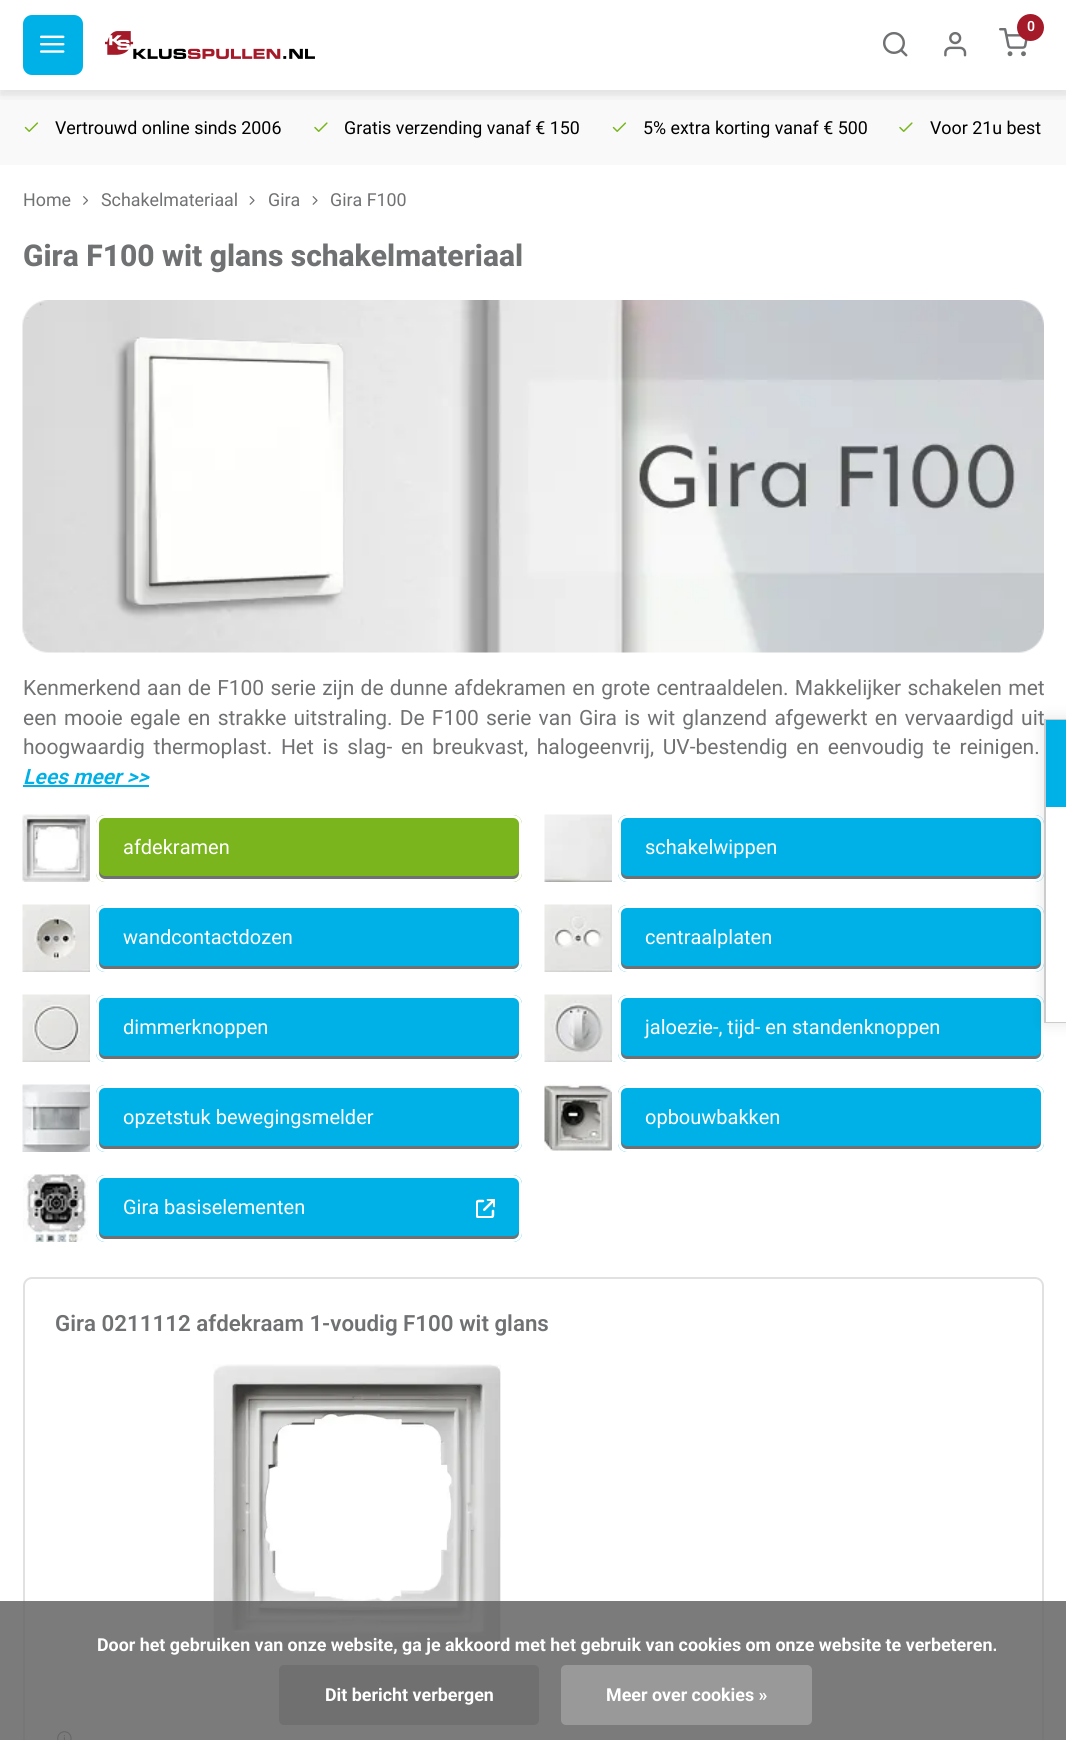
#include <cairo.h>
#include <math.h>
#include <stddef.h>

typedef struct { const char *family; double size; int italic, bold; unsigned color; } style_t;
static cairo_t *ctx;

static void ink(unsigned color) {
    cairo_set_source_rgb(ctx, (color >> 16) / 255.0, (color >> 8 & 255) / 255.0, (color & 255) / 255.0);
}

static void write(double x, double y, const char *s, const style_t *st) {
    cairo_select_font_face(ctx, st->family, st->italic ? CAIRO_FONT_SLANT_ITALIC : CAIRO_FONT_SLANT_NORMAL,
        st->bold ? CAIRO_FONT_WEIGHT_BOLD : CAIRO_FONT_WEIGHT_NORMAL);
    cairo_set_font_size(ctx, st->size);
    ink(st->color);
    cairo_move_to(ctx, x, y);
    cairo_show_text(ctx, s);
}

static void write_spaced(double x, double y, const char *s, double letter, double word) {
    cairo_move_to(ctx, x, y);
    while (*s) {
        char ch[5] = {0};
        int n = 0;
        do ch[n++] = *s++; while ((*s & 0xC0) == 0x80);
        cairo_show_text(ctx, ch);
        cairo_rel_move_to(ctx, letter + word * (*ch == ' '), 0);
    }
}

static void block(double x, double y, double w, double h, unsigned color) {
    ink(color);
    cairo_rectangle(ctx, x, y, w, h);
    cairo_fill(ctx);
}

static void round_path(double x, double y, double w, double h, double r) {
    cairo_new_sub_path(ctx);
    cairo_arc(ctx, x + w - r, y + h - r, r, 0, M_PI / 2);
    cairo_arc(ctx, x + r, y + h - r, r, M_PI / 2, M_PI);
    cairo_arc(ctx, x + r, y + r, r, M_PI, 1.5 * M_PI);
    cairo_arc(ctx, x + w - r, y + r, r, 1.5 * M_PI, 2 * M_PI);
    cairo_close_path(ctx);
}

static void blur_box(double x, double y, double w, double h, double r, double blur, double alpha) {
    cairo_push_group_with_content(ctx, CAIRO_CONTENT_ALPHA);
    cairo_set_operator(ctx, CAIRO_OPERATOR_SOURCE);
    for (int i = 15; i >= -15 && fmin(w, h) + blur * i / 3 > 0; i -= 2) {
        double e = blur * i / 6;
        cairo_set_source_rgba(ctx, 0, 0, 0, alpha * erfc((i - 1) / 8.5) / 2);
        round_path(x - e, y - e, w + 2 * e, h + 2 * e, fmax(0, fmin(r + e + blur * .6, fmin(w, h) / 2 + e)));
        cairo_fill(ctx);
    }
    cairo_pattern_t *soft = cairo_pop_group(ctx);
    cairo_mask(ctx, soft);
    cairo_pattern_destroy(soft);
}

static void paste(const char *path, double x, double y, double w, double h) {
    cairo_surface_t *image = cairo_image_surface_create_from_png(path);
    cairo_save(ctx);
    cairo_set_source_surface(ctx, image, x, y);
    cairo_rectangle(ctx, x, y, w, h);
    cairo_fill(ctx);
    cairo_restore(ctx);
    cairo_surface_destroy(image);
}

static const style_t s1 = {"Roboto SemiBold", 14, 0, 0, 0xffffff};
static const style_t s2 = {"Roboto", 17.85, 0, 0, 0x000000};
static const style_t s3 = {"Roboto", 17.85, 0, 0, 0x707173};
static const style_t s4 = {"Roboto ExtraBold", 30, 0, 0, 0x707173};
static const style_t s5 = {"Roboto SemiBold", 21, 1, 0, 0x00b1e7};
static const style_t s6 = {"Roboto", 20, 0, 0, 0xffffff};
static const style_t s7 = {"Roboto SemiBold", 22.3, 0, 0, 0x707173};
static const style_t s8 = {"Roboto", 17.85, 0, 1, 0xffffff};

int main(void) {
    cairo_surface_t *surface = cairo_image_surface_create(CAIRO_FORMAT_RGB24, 1066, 1740);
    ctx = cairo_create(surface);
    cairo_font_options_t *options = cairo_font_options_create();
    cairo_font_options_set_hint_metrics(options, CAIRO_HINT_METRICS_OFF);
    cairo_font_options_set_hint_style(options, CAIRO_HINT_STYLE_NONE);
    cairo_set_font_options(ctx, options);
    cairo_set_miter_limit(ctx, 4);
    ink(0xffffff);
    cairo_paint(ctx);
    block(0, 90, 1066, 75, 0xf9f9f9);
    cairo_save(ctx);
    cairo_rectangle(ctx, 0, 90, 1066, 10);
    cairo_clip(ctx);
    ink(0x000000);
    blur_box(0, 8, 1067, 90, 0, 7.5, 0.05);
    cairo_restore(ctx);
    cairo_save(ctx);
    cairo_rectangle(ctx, 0, 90, 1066, 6);
    cairo_clip(ctx);
    ink(0x000000);
    blur_box(0, 5, 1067, 90, 0, 3, 0.05);
    cairo_restore(ctx);
    ink(0x00b1e7);
    round_path(23, 15, 60, 60, 9);
    cairo_fill(ctx);
    paste("pic1.png", 40, 35, 25, 18);
    paste("pic2.png", 105, 31, 210, 28);
    paste("pic3.png", 999, 28, 29, 29);
    ink(0xa41a29);
    cairo_arc(ctx, 1030.5, 27.5, 13.5, 0, 2 * M_PI);
    cairo_fill(ctx);
    write(1027, 31, "0", &s1);
    paste("pic4.png", 883, 32, 25, 25);
    paste("pic5.png", 944, 32, 23, 25);
    paste("pic6.png", 24, 122, 15, 10);
    write(55, 134, "Vertrouwd online sinds 2006", &s2);
    paste("pic7.png", 314, 122, 14, 10);
    write(344, 134, "Gratis verzending vanaf € 150", &s2);
    paste("pic6.png", 612, 122, 15, 10);
    write(643, 134, "5% extra korting vanaf € 500", &s2);
    paste("pic7.png", 899, 122, 14, 10);
    write(930, 134, "Voor 21u best", &s2);
    write(23, 206, "Home", &s3);
    paste("pic8.png", 83, 196, 6, 9);
    write(101, 206, "Schakelmateriaal", &s3);
    paste("pic9.png", 249, 196, 6, 9);
    write(268, 206, "Gira", &s3);
    paste("pic9.png", 312, 196, 6, 9);
    write(330, 206, "Gira F100", &s3);
    write(23, 266, "Gira F100 wit glans schakelmateriaal", &s4);
    paste("pic10.png", 22, 300, 1022, 353);
    cairo_select_font_face(ctx, "Roboto", CAIRO_FONT_SLANT_NORMAL, CAIRO_FONT_WEIGHT_NORMAL);
    cairo_set_font_size(ctx, 21);
    write_spaced(23, 695, "Kenmerkend aan de F100 serie zijn de dunne afdekramen en grote centraaldelen. Makkelijker schakelen met", 0, 1.1);
    write_spaced(23, 725, "een mooie egale en strakke uitstraling. De F100 serie van Gira is wit glanzend afgewerkt en vervaardigd uit", 0, 2);
    write_spaced(23, 754, "hoogwaardig thermoplast. Het is slag- en breukvast, halogeenvrij, UV-bestendig en eenvoudig te reinigen.", 0, 3.5);
    write(23, 784, "Lees meer >>", &s5);
    block(23, 785, 126, 2, 0x00b1e7);
    paste("pic11.png", 22, 814, 68, 68);
    ink(0x7ab51d);
    round_path(96, 815, 426, 67, 9);
    cairo_fill(ctx);
    ink(0x707173);
    cairo_new_path(ctx);
    cairo_move_to(ctx, 99, 870);
    cairo_curve_to(ctx, 99, 874, 100, 879, 105, 879);
    cairo_line_to(ctx, 513, 879);
    cairo_curve_to(ctx, 518, 879, 519, 874, 519, 870);
    cairo_curve_to(ctx, 519, 873, 516, 876, 513, 876);
    cairo_line_to(ctx, 105, 876);
    cairo_curve_to(ctx, 102, 876, 99, 873, 99, 870);
    cairo_close_path(ctx);
    cairo_fill(ctx);
    round_path(97.5, 816.5, 423, 64, 7.5);
    ink(0xffffff);
    cairo_set_line_width(ctx, 3);
    cairo_stroke(ctx);
    write(123, 854, "afdekramen", &s6);
    paste("pic12.png", 544, 814, 68, 68);
    ink(0x00b1e7);
    round_path(618, 815, 426, 67, 9);
    cairo_fill(ctx);
    ink(0x707173);
    cairo_new_path(ctx);
    cairo_move_to(ctx, 621, 870);
    cairo_curve_to(ctx, 621, 874, 622, 879, 627, 879);
    cairo_line_to(ctx, 1035, 879);
    cairo_curve_to(ctx, 1040, 879, 1041, 874, 1041, 870);
    cairo_curve_to(ctx, 1041, 873, 1038, 876, 1035, 876);
    cairo_line_to(ctx, 627, 876);
    cairo_curve_to(ctx, 624, 876, 621, 873, 621, 870);
    cairo_close_path(ctx);
    cairo_fill(ctx);
    round_path(619.5, 816.5, 423, 64, 7.5);
    ink(0xffffff);
    cairo_stroke(ctx);
    write(645, 854, "schakelwippen", &s6);
    paste("pic13.png", 22, 904, 68, 68);
    ink(0x00b1e7);
    round_path(96, 905, 426, 67, 9);
    cairo_fill(ctx);
    ink(0x707173);
    cairo_new_path(ctx);
    cairo_move_to(ctx, 99, 960);
    cairo_curve_to(ctx, 99, 964, 100, 969, 105, 969);
    cairo_line_to(ctx, 513, 969);
    cairo_curve_to(ctx, 518, 969, 519, 964, 519, 960);
    cairo_curve_to(ctx, 519, 963, 516, 966, 513, 966);
    cairo_line_to(ctx, 105, 966);
    cairo_curve_to(ctx, 102, 966, 99, 963, 99, 960);
    cairo_close_path(ctx);
    cairo_fill(ctx);
    round_path(97.5, 906.5, 423, 64, 7.5);
    ink(0xffffff);
    cairo_stroke(ctx);
    write(123, 944, "wandcontactdozen", &s6);
    paste("pic14.png", 544, 904, 68, 68);
    ink(0x00b1e7);
    round_path(618, 905, 426, 67, 9);
    cairo_fill(ctx);
    ink(0x707173);
    cairo_new_path(ctx);
    cairo_move_to(ctx, 621, 960);
    cairo_curve_to(ctx, 621, 964, 622, 969, 627, 969);
    cairo_line_to(ctx, 1035, 969);
    cairo_curve_to(ctx, 1040, 969, 1041, 964, 1041, 960);
    cairo_curve_to(ctx, 1041, 963, 1038, 966, 1035, 966);
    cairo_line_to(ctx, 627, 966);
    cairo_curve_to(ctx, 624, 966, 621, 963, 621, 960);
    cairo_close_path(ctx);
    cairo_fill(ctx);
    round_path(619.5, 906.5, 423, 64, 7.5);
    ink(0xffffff);
    cairo_stroke(ctx);
    write(645, 944, "centraalplaten", &s6);
    paste("pic15.png", 22, 994, 68, 68);
    ink(0x00b1e7);
    round_path(96, 995, 426, 67, 9);
    cairo_fill(ctx);
    ink(0x707173);
    cairo_new_path(ctx);
    cairo_move_to(ctx, 99, 1050);
    cairo_curve_to(ctx, 99, 1054, 100, 1059, 105, 1059);
    cairo_line_to(ctx, 513, 1059);
    cairo_curve_to(ctx, 518, 1059, 519, 1054, 519, 1050);
    cairo_curve_to(ctx, 519, 1053, 516, 1056, 513, 1056);
    cairo_line_to(ctx, 105, 1056);
    cairo_curve_to(ctx, 102, 1056, 99, 1053, 99, 1050);
    cairo_close_path(ctx);
    cairo_fill(ctx);
    round_path(97.5, 996.5, 423, 64, 7.5);
    ink(0xffffff);
    cairo_stroke(ctx);
    write(123, 1034, "dimmerknoppen", &s6);
    paste("pic16.png", 544, 994, 68, 68);
    ink(0x00b1e7);
    round_path(618, 995, 426, 67, 9);
    cairo_fill(ctx);
    ink(0x707173);
    cairo_new_path(ctx);
    cairo_move_to(ctx, 621, 1050);
    cairo_curve_to(ctx, 621, 1054, 622, 1059, 627, 1059);
    cairo_line_to(ctx, 1035, 1059);
    cairo_curve_to(ctx, 1040, 1059, 1041, 1054, 1041, 1050);
    cairo_curve_to(ctx, 1041, 1053, 1038, 1056, 1035, 1056);
    cairo_line_to(ctx, 627, 1056);
    cairo_curve_to(ctx, 624, 1056, 621, 1053, 621, 1050);
    cairo_close_path(ctx);
    cairo_fill(ctx);
    round_path(619.5, 996.5, 423, 64, 7.5);
    ink(0xffffff);
    cairo_stroke(ctx);
    write(645, 1034, "jaloezie-, tijd- en standenknoppen", &s6);
    paste("pic17.png", 22, 1084, 68, 68);
    ink(0x00b1e7);
    round_path(96, 1085, 426, 67, 9);
    cairo_fill(ctx);
    ink(0x707173);
    cairo_new_path(ctx);
    cairo_move_to(ctx, 99, 1140);
    cairo_curve_to(ctx, 99, 1144, 100, 1149, 105, 1149);
    cairo_line_to(ctx, 513, 1149);
    cairo_curve_to(ctx, 518, 1149, 519, 1144, 519, 1140);
    cairo_curve_to(ctx, 519, 1143, 516, 1146, 513, 1146);
    cairo_line_to(ctx, 105, 1146);
    cairo_curve_to(ctx, 102, 1146, 99, 1143, 99, 1140);
    cairo_close_path(ctx);
    cairo_fill(ctx);
    round_path(97.5, 1086.5, 423, 64, 7.5);
    ink(0xffffff);
    cairo_stroke(ctx);
    write(123, 1124, "opzetstuk bewegingsmelder", &s6);
    paste("pic18.png", 544, 1084, 68, 67);
    ink(0x00b1e7);
    round_path(618, 1085, 426, 67, 9);
    cairo_fill(ctx);
    ink(0x707173);
    cairo_new_path(ctx);
    cairo_move_to(ctx, 621, 1140);
    cairo_curve_to(ctx, 621, 1144, 622, 1149, 627, 1149);
    cairo_line_to(ctx, 1035, 1149);
    cairo_curve_to(ctx, 1040, 1149, 1041, 1144, 1041, 1140);
    cairo_curve_to(ctx, 1041, 1143, 1038, 1146, 1035, 1146);
    cairo_line_to(ctx, 627, 1146);
    cairo_curve_to(ctx, 624, 1146, 621, 1143, 621, 1140);
    cairo_close_path(ctx);
    cairo_fill(ctx);
    round_path(619.5, 1086.5, 423, 64, 7.5);
    ink(0xffffff);
    cairo_stroke(ctx);
    write(645, 1124, "opbouwbakken", &s6);
    paste("pic19.png", 23, 1174, 65, 68);
    ink(0x00b1e7);
    round_path(96, 1175, 426, 67, 9);
    cairo_fill(ctx);
    ink(0x707173);
    cairo_new_path(ctx);
    cairo_move_to(ctx, 99, 1230);
    cairo_curve_to(ctx, 99, 1234, 100, 1239, 105, 1239);
    cairo_line_to(ctx, 513, 1239);
    cairo_curve_to(ctx, 518, 1239, 519, 1234, 519, 1230);
    cairo_curve_to(ctx, 519, 1233, 516, 1236, 513, 1236);
    cairo_line_to(ctx, 105, 1236);
    cairo_curve_to(ctx, 102, 1236, 99, 1233, 99, 1230);
    cairo_close_path(ctx);
    cairo_fill(ctx);
    round_path(97.5, 1176.5, 423, 64, 7.5);
    ink(0xffffff);
    cairo_stroke(ctx);
    write(123, 1214, "Gira basiselementen", &s6);
    paste("pic20.png", 476, 1199, 19, 19);
    round_path(24, 1278, 1019, 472, 8);
    ink(0xe1e1e1);
    cairo_set_line_width(ctx, 2);
    cairo_stroke(ctx);
    write(55, 1331, "Gira 0211112 afdekraam 1-voudig F100 wit glans", &s7);
    paste("pic21.png", 213, 1364, 288, 287);
    paste("pic22.png", 57, 1731, 15, 9);
    ink(0x000000);
    blur_box(1044, 719, 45, 304, 0, 7.5, 0.1);
    cairo_rectangle(ctx, 1045, 720, 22, 302);
    ink(0xcccccc);
    cairo_stroke(ctx);
    block(1046, 720, 20, 87, 0x00b1e7);
    block(1046, 807, 20, 215, 0xffffff);
    cairo_set_source_rgba(ctx, 0.392, 0.392, 0.392, 0.85);
    cairo_rectangle(ctx, 0, 1601, 1066, 139);
    cairo_fill(ctx);
    write(97, 1651, "Door het gebruiken van onze website, ga je akkoord met het gebruik van cookies om onze website te verbeteren.", &s8);
    ink(0x707070);
    round_path(279, 1665, 260, 60, 5);
    cairo_fill(ctx);
    write(325, 1701, "Dit bericht verbergen", &s8);
    ink(0x999999);
    round_path(561, 1665, 251, 60, 5);
    cairo_fill(ctx);
    write(606, 1701, "Meer over cookies »", &s8);
    cairo_surface_write_to_png(surface, "screenshot.png");
    cairo_font_options_destroy(options);
    cairo_destroy(ctx);
    cairo_surface_destroy(surface);
    return 0;
}
